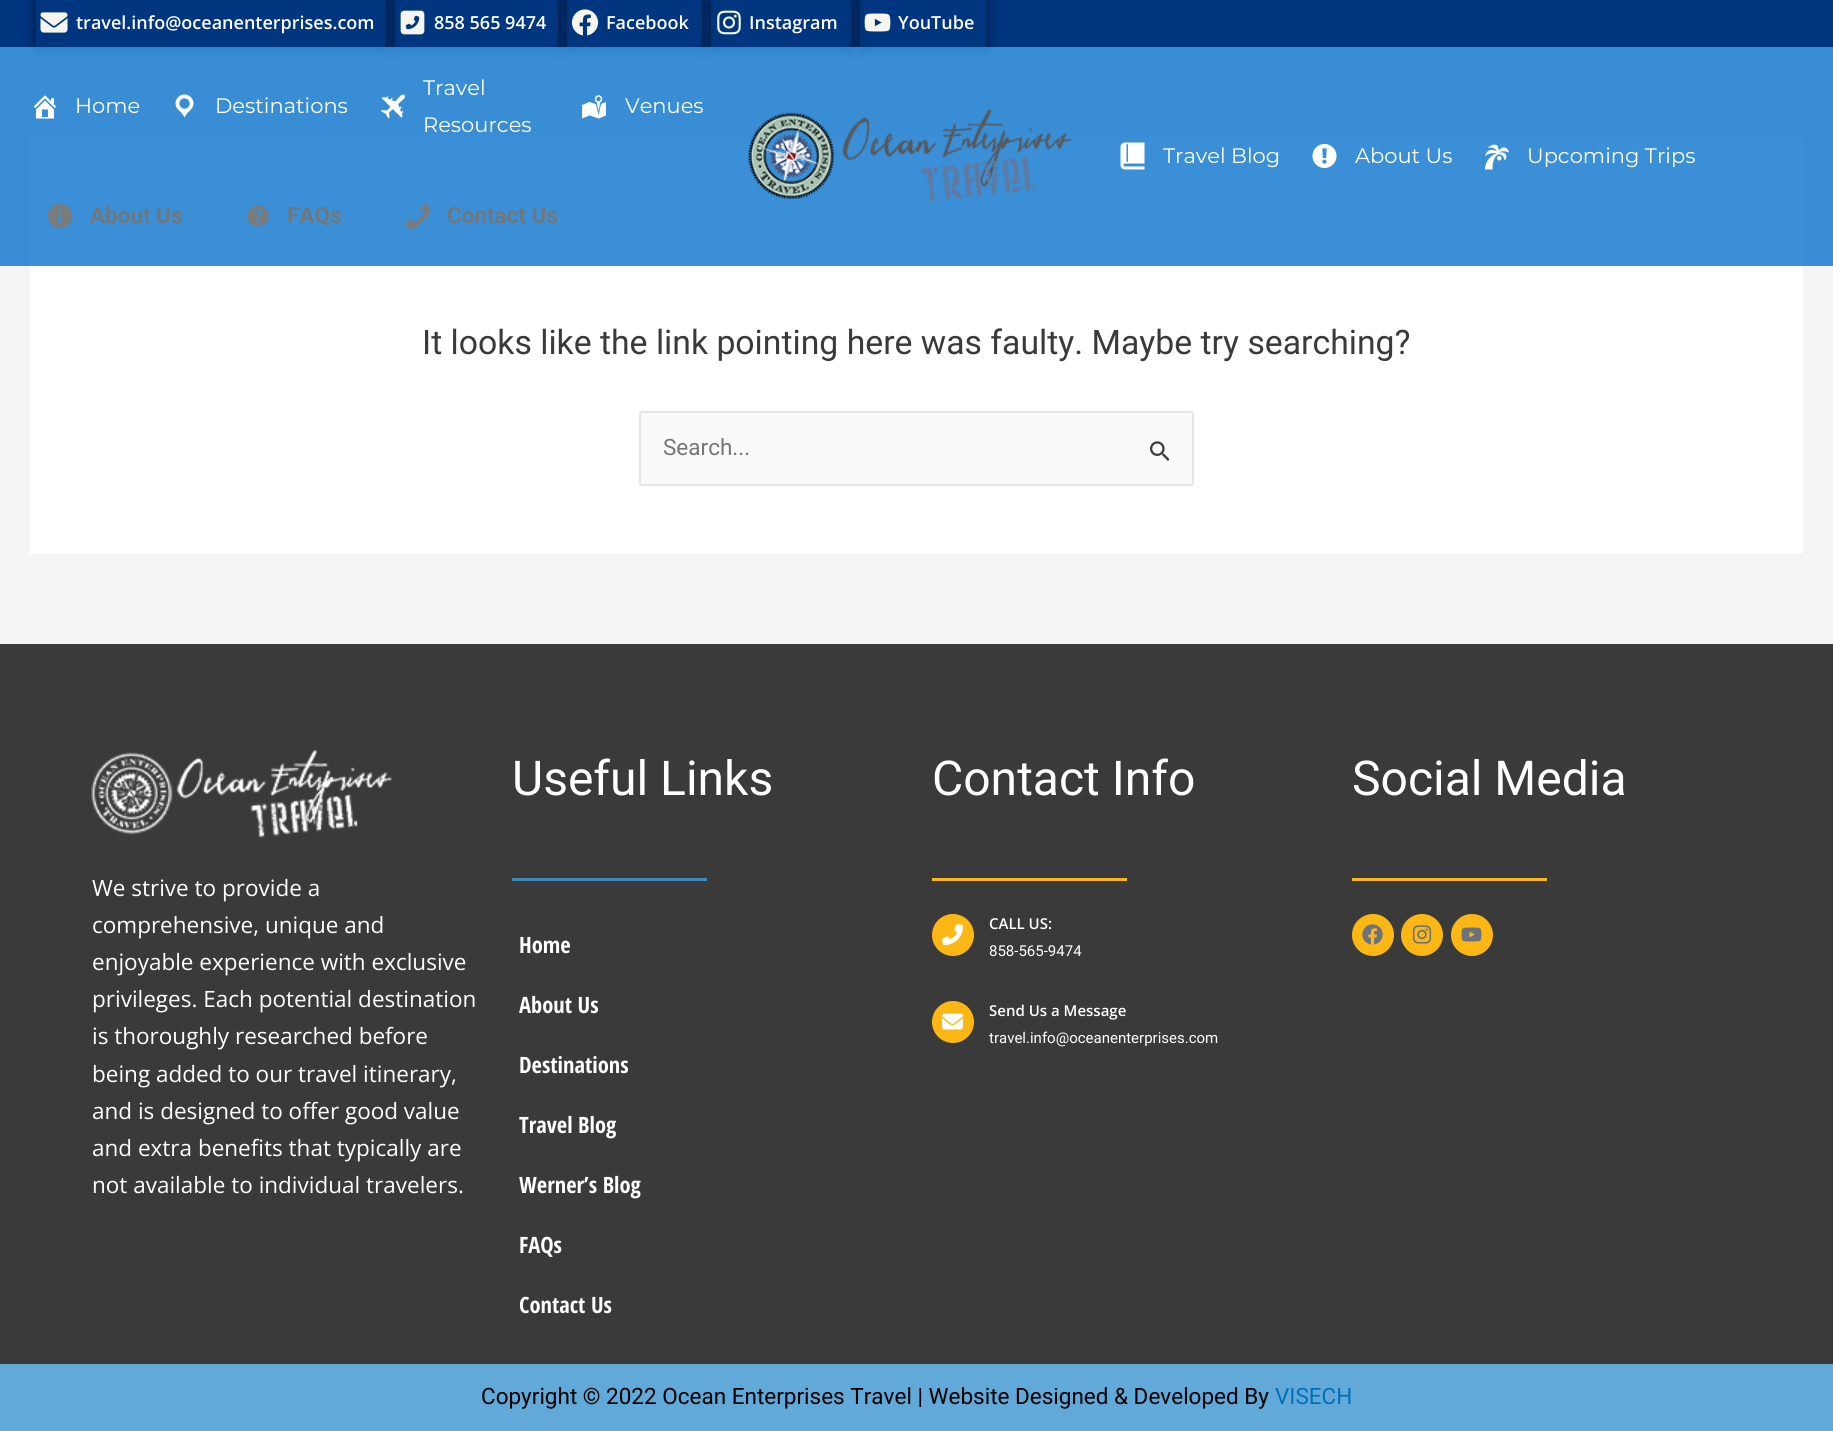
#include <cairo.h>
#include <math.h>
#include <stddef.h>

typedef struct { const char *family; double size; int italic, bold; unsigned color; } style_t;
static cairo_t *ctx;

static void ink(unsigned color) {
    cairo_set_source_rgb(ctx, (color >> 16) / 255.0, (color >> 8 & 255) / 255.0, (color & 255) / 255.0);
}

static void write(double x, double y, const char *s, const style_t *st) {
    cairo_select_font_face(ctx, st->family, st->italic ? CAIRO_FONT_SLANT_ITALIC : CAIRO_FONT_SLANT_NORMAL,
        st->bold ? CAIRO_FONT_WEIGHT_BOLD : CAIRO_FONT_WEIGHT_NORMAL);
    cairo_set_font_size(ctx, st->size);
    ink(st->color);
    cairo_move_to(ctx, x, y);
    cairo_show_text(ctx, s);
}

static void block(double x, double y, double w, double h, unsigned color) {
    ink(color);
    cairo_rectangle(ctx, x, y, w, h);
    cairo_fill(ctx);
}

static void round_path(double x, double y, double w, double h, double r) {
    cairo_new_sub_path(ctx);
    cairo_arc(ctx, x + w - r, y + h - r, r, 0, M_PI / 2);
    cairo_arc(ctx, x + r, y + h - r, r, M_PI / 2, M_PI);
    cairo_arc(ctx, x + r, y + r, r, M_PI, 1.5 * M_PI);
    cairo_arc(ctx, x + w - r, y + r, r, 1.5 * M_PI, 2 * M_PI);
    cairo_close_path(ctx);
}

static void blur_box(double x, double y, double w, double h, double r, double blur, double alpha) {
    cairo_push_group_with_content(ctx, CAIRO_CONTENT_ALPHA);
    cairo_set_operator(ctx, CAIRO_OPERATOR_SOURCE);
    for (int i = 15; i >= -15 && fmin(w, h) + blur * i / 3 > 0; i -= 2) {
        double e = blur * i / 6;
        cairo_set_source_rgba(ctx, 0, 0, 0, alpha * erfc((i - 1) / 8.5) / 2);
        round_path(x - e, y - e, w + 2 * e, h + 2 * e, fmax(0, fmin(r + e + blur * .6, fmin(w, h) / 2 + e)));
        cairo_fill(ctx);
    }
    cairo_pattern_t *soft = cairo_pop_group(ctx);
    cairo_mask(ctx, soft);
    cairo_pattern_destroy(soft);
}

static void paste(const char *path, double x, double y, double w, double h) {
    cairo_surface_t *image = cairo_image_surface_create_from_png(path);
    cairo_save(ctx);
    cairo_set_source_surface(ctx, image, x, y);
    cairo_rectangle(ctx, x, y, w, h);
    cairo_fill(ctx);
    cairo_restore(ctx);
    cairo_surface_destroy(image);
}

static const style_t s1 = {"Open Sans SemiBold", 18, 0, 0, 0xffffff};
static const style_t s2 = {"Montserrat", 21, 0, 0, 0xffffff};
static const style_t s3 = {"Roboto SemiBold", 22.5, 0, 0, 0x757575};
static const style_t s4 = {"Roboto", 33.75, 0, 0, 0x3a3a3a};
static const style_t s5 = {"Roboto", 22.5, 0, 0, 0x757575};
static const style_t s6 = {"Roboto", 48, 0, 0, 0xffffff};
static const style_t s7 = {"Open Sans Condensed", 22.5, 0, 1, 0xffffff};
static const style_t s8 = {"Open Sans SemiBold", 15, 0, 0, 0xffffff};
static const style_t s9 = {"Roboto", 15, 0, 0, 0xffffff};
static const style_t s10 = {"Open Sans", 22.5, 0, 0, 0xffffff};
static const style_t s11 = {"Roboto", 22.5, 0, 0, 0x000000};
static const style_t s12 = {"Roboto", 22.5, 0, 0, 0x0170b9};

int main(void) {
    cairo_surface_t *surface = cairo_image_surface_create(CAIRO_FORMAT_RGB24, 1833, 1431);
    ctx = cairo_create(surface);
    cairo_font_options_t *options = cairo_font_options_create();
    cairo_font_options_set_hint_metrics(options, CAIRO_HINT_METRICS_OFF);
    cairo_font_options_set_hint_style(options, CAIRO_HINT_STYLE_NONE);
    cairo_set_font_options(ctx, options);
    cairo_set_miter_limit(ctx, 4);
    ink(0xf5f5f5);
    cairo_paint(ctx);
    block(0, 0, 1833, 47, 0x003580);
    cairo_save(ctx);
    cairo_set_fill_rule(ctx, CAIRO_FILL_RULE_EVEN_ODD);
    cairo_new_path(ctx);
    cairo_move_to(ctx, 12, 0);
    cairo_line_to(ctx, 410, 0);
    cairo_line_to(ctx, 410, 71);
    cairo_line_to(ctx, 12, 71);
    cairo_close_path(ctx);
    cairo_move_to(ctx, 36, 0);
    cairo_line_to(ctx, 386, 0);
    cairo_line_to(ctx, 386, 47);
    cairo_line_to(ctx, 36, 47);
    cairo_close_path(ctx);
    cairo_clip(ctx);
    ink(0x000000);
    blur_box(36, 0, 350, 47, 0, 7.5, 0.5);
    cairo_restore(ctx);
    paste("pic1.png", 40, 12, 28, 21);
    write(76, 29, "travel.info@oceanenterprises.com", &s1);
    cairo_save(ctx);
    cairo_set_fill_rule(ctx, CAIRO_FILL_RULE_EVEN_ODD);
    cairo_new_path(ctx);
    cairo_move_to(ctx, 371, 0);
    cairo_line_to(ctx, 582, 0);
    cairo_line_to(ctx, 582, 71);
    cairo_line_to(ctx, 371, 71);
    cairo_close_path(ctx);
    cairo_move_to(ctx, 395, 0);
    cairo_line_to(ctx, 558, 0);
    cairo_line_to(ctx, 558, 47);
    cairo_line_to(ctx, 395, 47);
    cairo_close_path(ctx);
    cairo_clip(ctx);
    ink(0x000000);
    blur_box(395, 0, 163, 47, 0, 7.5, 0.5);
    cairo_restore(ctx);
    paste("pic2.png", 400, 10, 25, 25);
    write(434, 29, "858 565 9474", &s1);
    cairo_save(ctx);
    cairo_set_fill_rule(ctx, CAIRO_FILL_RULE_EVEN_ODD);
    cairo_new_path(ctx);
    cairo_move_to(ctx, 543, 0);
    cairo_line_to(ctx, 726, 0);
    cairo_line_to(ctx, 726, 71);
    cairo_line_to(ctx, 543, 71);
    cairo_close_path(ctx);
    cairo_move_to(ctx, 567, 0);
    cairo_line_to(ctx, 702, 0);
    cairo_line_to(ctx, 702, 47);
    cairo_line_to(ctx, 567, 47);
    cairo_close_path(ctx);
    cairo_clip(ctx);
    ink(0x000000);
    blur_box(567, 0, 135, 47, 0, 7.5, 0.5);
    cairo_restore(ctx);
    paste("pic3.png", 571, 9, 28, 27);
    write(606, 29, "Facebook", &s1);
    cairo_save(ctx);
    cairo_set_fill_rule(ctx, CAIRO_FILL_RULE_EVEN_ODD);
    cairo_new_path(ctx);
    cairo_move_to(ctx, 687, 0);
    cairo_line_to(ctx, 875, 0);
    cairo_line_to(ctx, 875, 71);
    cairo_line_to(ctx, 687, 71);
    cairo_close_path(ctx);
    cairo_move_to(ctx, 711, 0);
    cairo_line_to(ctx, 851, 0);
    cairo_line_to(ctx, 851, 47);
    cairo_line_to(ctx, 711, 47);
    cairo_close_path(ctx);
    cairo_clip(ctx);
    ink(0x000000);
    blur_box(711, 0, 140, 47, 0, 7.5, 0.5);
    cairo_restore(ctx);
    paste("pic4.png", 717, 10, 24, 25);
    write(749, 29, "Instagram", &s1);
    cairo_save(ctx);
    cairo_set_fill_rule(ctx, CAIRO_FILL_RULE_EVEN_ODD);
    cairo_new_path(ctx);
    cairo_move_to(ctx, 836, 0);
    cairo_line_to(ctx, 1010, 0);
    cairo_line_to(ctx, 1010, 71);
    cairo_line_to(ctx, 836, 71);
    cairo_close_path(ctx);
    cairo_move_to(ctx, 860, 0);
    cairo_line_to(ctx, 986, 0);
    cairo_line_to(ctx, 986, 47);
    cairo_line_to(ctx, 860, 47);
    cairo_close_path(ctx);
    cairo_clip(ctx);
    ink(0x000000);
    blur_box(860, 0, 126, 47, 0, 7.5, 0.5);
    cairo_restore(ctx);
    paste("pic5.png", 864, 13, 27, 19);
    write(898, 29, "YouTube", &s1);
    block(30, 137, 1773, 417, 0xffffff);
    cairo_set_source_rgba(ctx, 0.051, 0.459, 0.804, 0.81);
    cairo_rectangle(ctx, 0, 47, 1833, 219);
    cairo_fill(ctx);
    paste("pic6.png", 33, 95, 24, 24);
    write(75, 113, "Home", &s2);
    paste("pic7.png", 175, 94, 19, 24);
    write(215, 113, "Destinations", &s2);
    paste("pic8.png", 381, 94, 24, 25);
    write(423, 95, "Travel", &s2);
    write(423, 132, "Resources", &s2);
    paste("pic9.png", 582, 95, 24, 24);
    write(625, 113, "Venues", &s2);
    paste("pic10.png", 48, 204, 24, 24);
    write(90, 223, "About Us", &s3);
    paste("pic11.png", 247, 205, 22, 22);
    write(287, 223, "FAQs", &s3);
    paste("pic12.png", 403, 202, 28, 27);
    write(447, 223, "Contact Us", &s3);
    paste("pic13.png", 748, 109, 324, 92);
    paste("pic14.png", 1120, 142, 25, 28);
    write(1163, 163, "Travel Blog", &s2);
    paste("pic15.png", 1312, 144, 25, 24);
    write(1355, 163, "About Us", &s2);
    paste("pic16.png", 1485, 144, 24, 26);
    write(1527, 163, "Upcoming Trips", &s2);
    write(422, 354, "It looks like the link pointing here was faulty. Maybe try searching?", &s4);
    ink(0xfafafa);
    round_path(640, 412, 553, 73, 2);
    cairo_fill_preserve(ctx);
    ink(0xe5e5e5);
    cairo_stroke(ctx);
    write(663, 455, "Search...", &s5);
    paste("pic17.png", 1150, 441, 19, 20);
    block(0, 644, 1833, 720, 0x3a3a3a);
    write(512, 795, "Useful Links", &s6);
    block(512, 878, 195, 3, 0x418ab8);
    write(519, 953, "Home", &s7);
    write(519, 1013, "About Us", &s7);
    write(519, 1073, "Destinations", &s7);
    write(519, 1133, "Travel Blog", &s7);
    write(519, 1193, "Werner’s Blog", &s7);
    write(519, 1253, "FAQs", &s7);
    write(519, 1313, "Contact Us", &s7);
    write(932, 795, "Contact Info", &s6);
    block(932, 878, 195, 3, 0xfdb714);
    cairo_new_path(ctx);
    cairo_arc(ctx, 953, 935, 21, 0, 2 * M_PI);
    cairo_fill(ctx);
    paste("pic18.png", 942, 924, 21, 21);
    write(989, 929, "CALL US:", &s8);
    write(989, 956, "858-565-9474", &s9);
    ink(0xfdb714);
    cairo_new_path(ctx);
    cairo_arc(ctx, 953, 1022, 21, 0, 2 * M_PI);
    cairo_fill(ctx);
    paste("pic19.png", 942, 1013, 21, 17);
    write(989, 1016, "Send Us a Message", &s8);
    write(989, 1043, "travel.info@oceanenterprises.com", &s9);
    write(1352, 795, "Social Media", &s6);
    block(1352, 878, 195, 3, 0xfdb714);
    cairo_new_path(ctx);
    cairo_arc(ctx, 1373, 935, 21, 0, 2 * M_PI);
    cairo_fill(ctx);
    paste("pic20.png", 1362, 924, 21, 21);
    cairo_arc(ctx, 1422, 935, 21, 0, 2 * M_PI);
    cairo_fill(ctx);
    paste("pic21.png", 1412, 925, 20, 19);
    cairo_arc(ctx, 1472, 935, 21, 0, 2 * M_PI);
    cairo_fill(ctx);
    paste("pic22.png", 1461, 927, 21, 15);
    paste("pic23.png", 91, 749, 301, 89);
    write(92, 896, "We strive to provide a", &s10);
    write(92, 933, "comprehensive, unique and", &s10);
    write(92, 970, "enjoyable experience with exclusive", &s10);
    write(92, 1007, "privileges. Each potential destination", &s10);
    write(92, 1044, "is thoroughly researched before", &s10);
    write(92, 1082, "being added to our travel itinerary,", &s10);
    write(92, 1119, "and is designed to offer good value", &s10);
    write(92, 1156, "and extra benefits that typically are", &s10);
    write(92, 1193, "not available to individual travelers.", &s10);
    block(0, 1364, 1833, 67, 0x61a9d8);
    write(481, 1404, "Copyright © 2022 Ocean Enterprises Travel | Website Designed & Developed By", &s11);
    write(1275, 1404, "VISECH", &s12);
    cairo_surface_write_to_png(surface, "screenshot.png");
    cairo_font_options_destroy(options);
    cairo_destroy(ctx);
    cairo_surface_destroy(surface);
    return 0;
}
